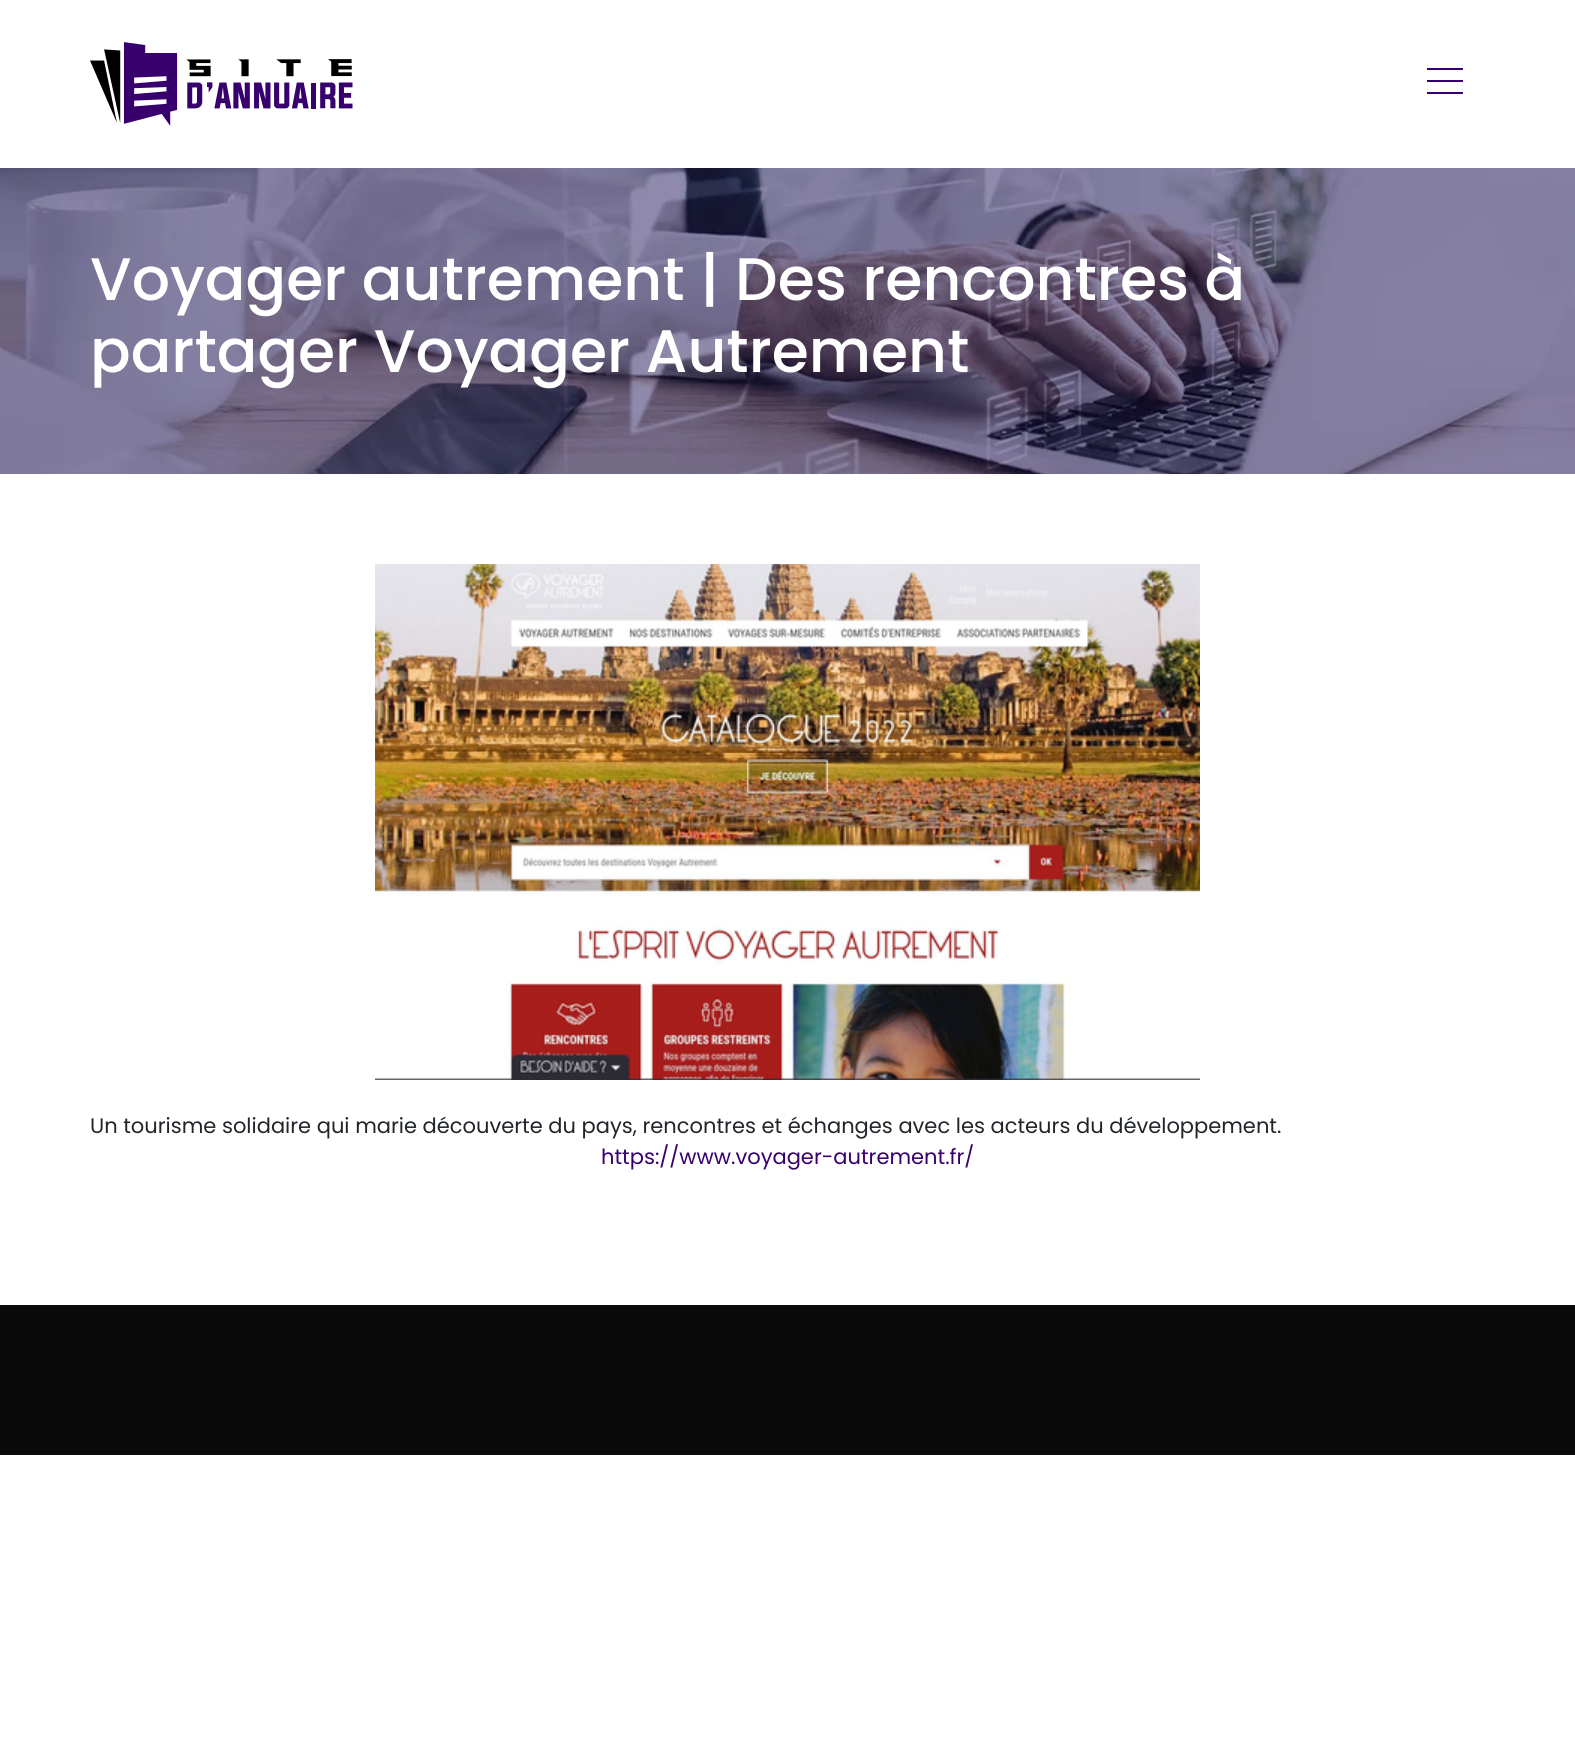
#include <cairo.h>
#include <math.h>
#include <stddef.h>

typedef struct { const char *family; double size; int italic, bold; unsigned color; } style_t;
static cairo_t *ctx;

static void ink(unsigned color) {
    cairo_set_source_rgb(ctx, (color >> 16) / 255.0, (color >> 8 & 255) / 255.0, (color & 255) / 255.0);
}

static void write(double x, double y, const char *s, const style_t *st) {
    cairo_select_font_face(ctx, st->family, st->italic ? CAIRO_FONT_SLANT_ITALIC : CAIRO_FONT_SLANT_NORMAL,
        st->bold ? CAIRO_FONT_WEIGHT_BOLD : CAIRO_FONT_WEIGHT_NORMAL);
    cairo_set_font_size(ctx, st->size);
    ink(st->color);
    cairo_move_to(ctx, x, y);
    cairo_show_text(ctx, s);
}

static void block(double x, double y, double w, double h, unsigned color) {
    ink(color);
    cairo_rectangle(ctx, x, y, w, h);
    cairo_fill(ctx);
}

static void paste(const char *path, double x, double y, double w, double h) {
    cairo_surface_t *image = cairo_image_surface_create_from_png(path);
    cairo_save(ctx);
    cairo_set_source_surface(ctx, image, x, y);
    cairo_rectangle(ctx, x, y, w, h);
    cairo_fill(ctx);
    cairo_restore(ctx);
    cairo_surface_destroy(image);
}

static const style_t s1 = {"Poppins Medium", 60, 0, 0, 0xffffff};
static const style_t s2 = {"Poppins", 21, 0, 0, 0x212529};
static const style_t s3 = {"Poppins", 21, 0, 0, 0x38006d};

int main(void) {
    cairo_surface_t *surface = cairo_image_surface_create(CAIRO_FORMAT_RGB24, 1575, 1749);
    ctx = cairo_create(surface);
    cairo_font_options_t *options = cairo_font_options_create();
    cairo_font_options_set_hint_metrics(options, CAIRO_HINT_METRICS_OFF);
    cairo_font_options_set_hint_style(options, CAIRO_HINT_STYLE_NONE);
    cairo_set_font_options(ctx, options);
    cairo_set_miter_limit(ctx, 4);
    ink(0xffffff);
    cairo_paint(ctx);
    paste("pic1.png", 90, 42, 263, 84);
    block(1427, 68, 36, 2, 0x38006d);
    block(1427, 80, 36, 2, 0x38006d);
    block(1427, 92, 36, 2, 0x38006d);
    paste("pic2.png", 0, 168, 1575, 306);
    write(90, 300, "Voyager autrement | Des rencontres à", &s1);
    write(90, 372, "partager Voyager Autrement", &s1);
    paste("pic3.png", 375, 564, 825, 516);
    write(90, 1133, "Un tourisme solidaire qui marie découverte du pays, rencontres et échanges avec les acteurs du développement.", &s2);
    write(601, 1164, "https://www.voyager-autrement.fr/", &s3);
    block(0, 1305, 1575, 150, 0x0a0a0a);
    cairo_surface_write_to_png(surface, "screenshot.png");
    cairo_font_options_destroy(options);
    cairo_destroy(ctx);
    cairo_surface_destroy(surface);
    return 0;
}
